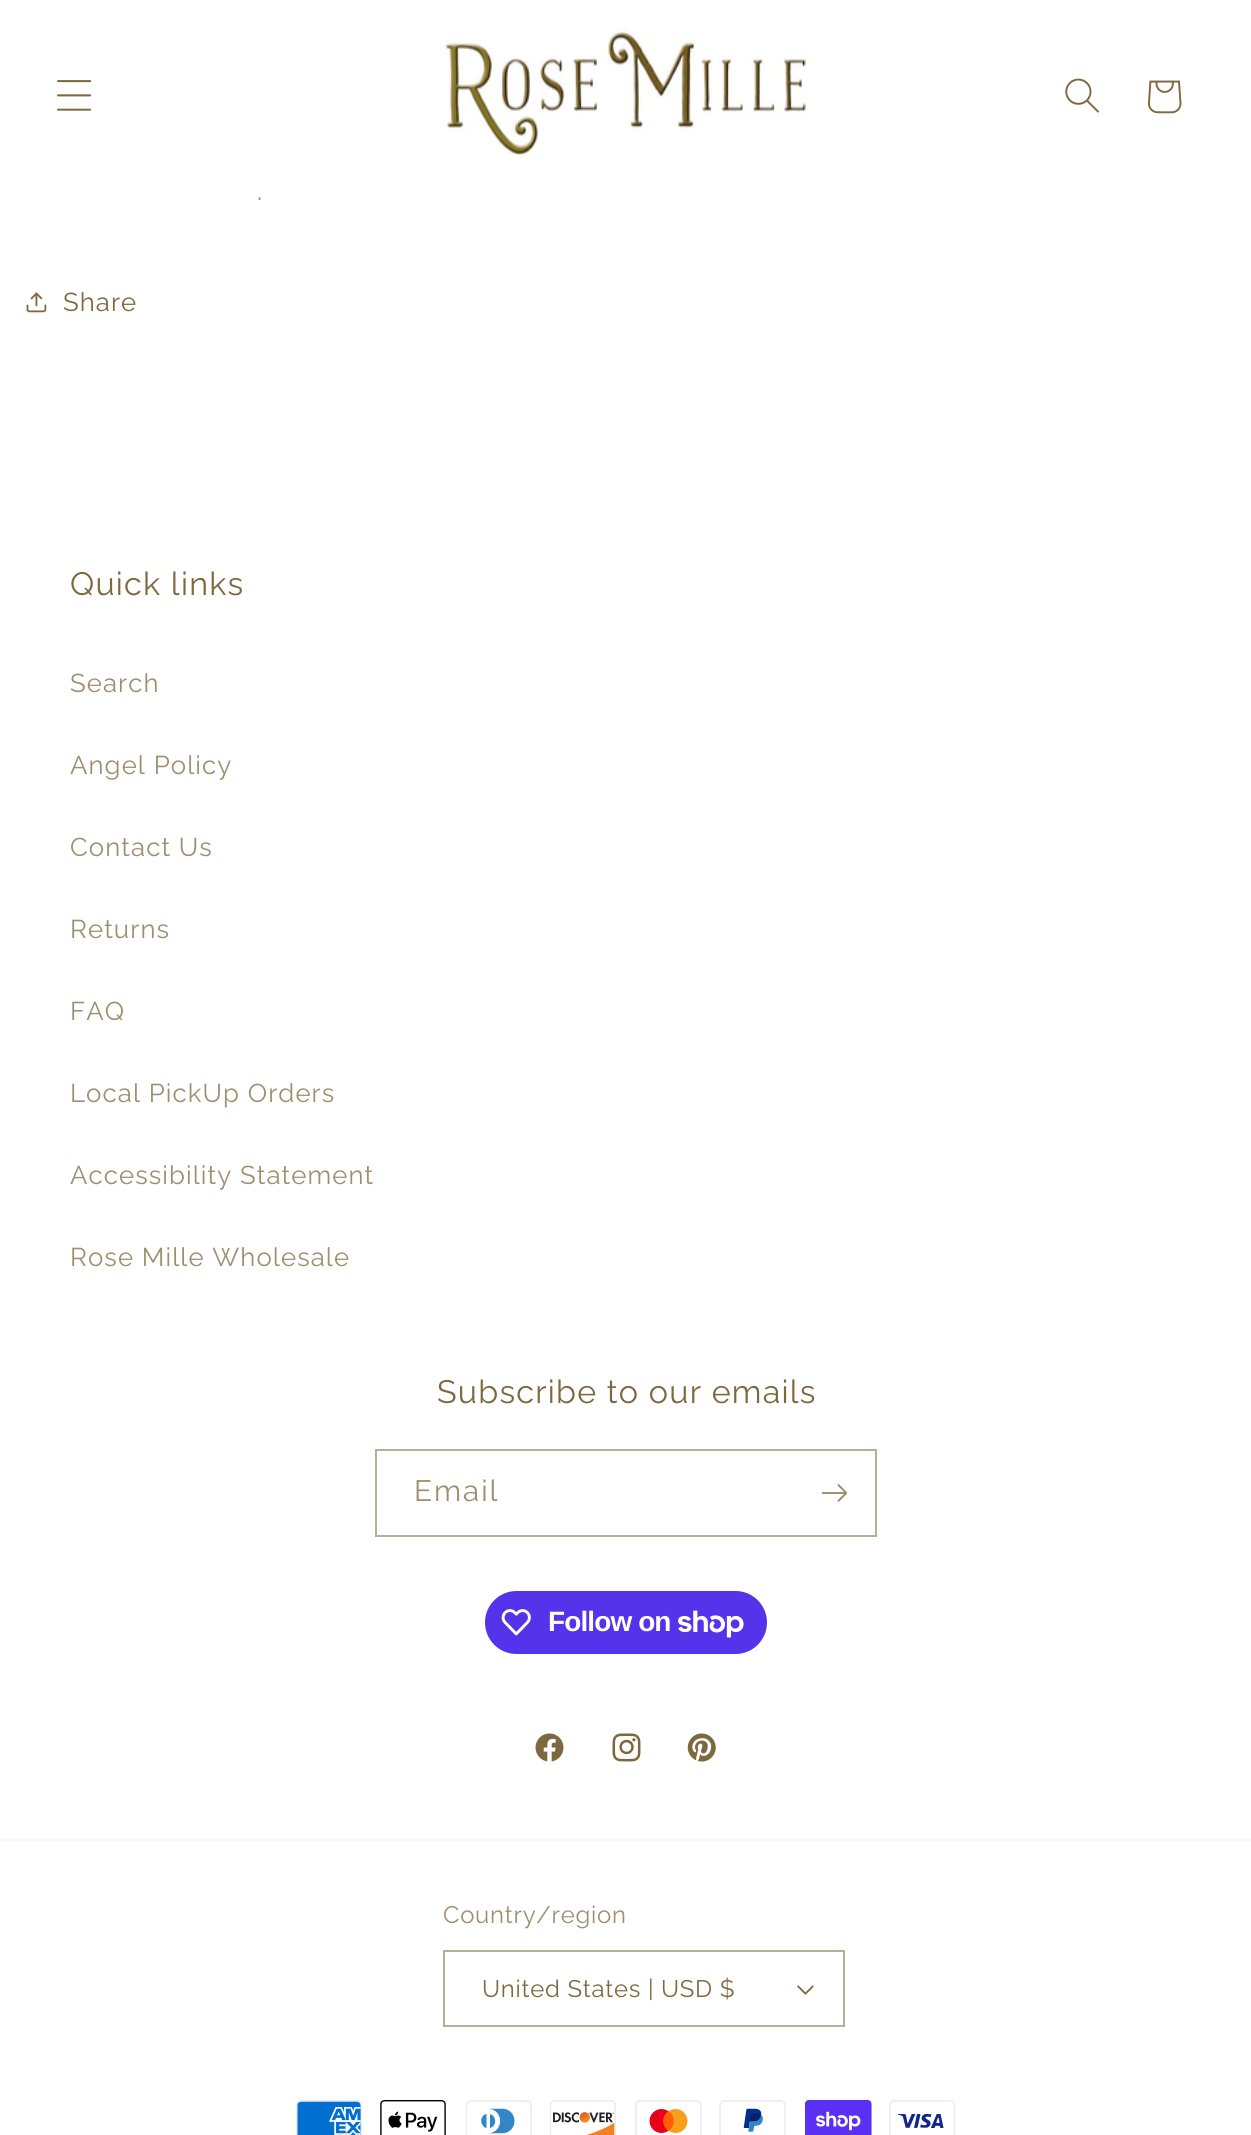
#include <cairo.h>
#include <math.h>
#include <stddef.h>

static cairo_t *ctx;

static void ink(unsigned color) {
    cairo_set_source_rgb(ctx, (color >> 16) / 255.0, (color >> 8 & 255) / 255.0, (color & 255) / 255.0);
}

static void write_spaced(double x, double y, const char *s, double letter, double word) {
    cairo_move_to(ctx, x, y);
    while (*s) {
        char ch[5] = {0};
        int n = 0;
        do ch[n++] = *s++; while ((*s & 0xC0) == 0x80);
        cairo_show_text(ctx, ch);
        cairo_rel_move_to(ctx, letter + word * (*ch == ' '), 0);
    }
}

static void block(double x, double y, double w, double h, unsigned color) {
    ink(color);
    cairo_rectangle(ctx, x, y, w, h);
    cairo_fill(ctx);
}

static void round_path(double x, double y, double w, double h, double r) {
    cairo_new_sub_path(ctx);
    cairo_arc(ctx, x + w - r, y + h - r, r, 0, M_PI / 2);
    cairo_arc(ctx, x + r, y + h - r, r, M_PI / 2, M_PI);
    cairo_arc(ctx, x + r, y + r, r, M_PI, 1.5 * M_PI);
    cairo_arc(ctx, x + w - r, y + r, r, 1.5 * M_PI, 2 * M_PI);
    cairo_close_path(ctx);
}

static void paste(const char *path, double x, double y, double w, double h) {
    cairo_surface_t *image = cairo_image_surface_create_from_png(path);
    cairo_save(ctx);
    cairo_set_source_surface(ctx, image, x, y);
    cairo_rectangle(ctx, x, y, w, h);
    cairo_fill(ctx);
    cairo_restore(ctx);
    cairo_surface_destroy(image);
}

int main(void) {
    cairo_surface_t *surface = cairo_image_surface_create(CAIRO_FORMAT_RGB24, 1251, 2135);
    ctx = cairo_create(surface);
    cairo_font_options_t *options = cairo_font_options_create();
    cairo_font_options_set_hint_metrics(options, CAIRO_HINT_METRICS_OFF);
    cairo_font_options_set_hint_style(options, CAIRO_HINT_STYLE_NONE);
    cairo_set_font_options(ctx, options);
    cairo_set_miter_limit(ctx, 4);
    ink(0xffffff);
    cairo_paint(ctx);
    paste("pic1.png", 57, 80, 35, 31);
    paste("pic2.png", 445, 24, 362, 132);
    paste("pic3.png", 1065, 78, 34, 35);
    paste("pic4.png", 1148, 80, 34, 34);
    cairo_select_font_face(ctx, "Raleway", CAIRO_FONT_SLANT_NORMAL, CAIRO_FONT_WEIGHT_NORMAL);
    cairo_set_font_size(ctx, 28);
    ink(0x9e8f6f);
    write_spaced(257, 200, ".", 1.1, 0);
    paste("pic5.png", 26, 292, 21, 21);
    cairo_set_font_size(ctx, 25.75);
    ink(0x7e693f);
    write_spaced(63, 311, "Share", 1.1, 0);
    cairo_set_font_size(ctx, 32.25);
    write_spaced(70, 595, "Quick links", 1.25, 0);
    cairo_set_font_size(ctx, 25.75);
    ink(0x9e8f6f);
    write_spaced(70, 692, "Search", 1.1, 0);
    write_spaced(70, 774, "Angel Policy", 1.1, 0);
    write_spaced(70, 856, "Contact Us", 1.1, 0);
    write_spaced(70, 938, "Returns", 1.1, 0);
    write_spaced(70, 1020, "FAQ", 1.1, 0);
    write_spaced(70, 1102, "Local PickUp Orders", 1.1, 0);
    write_spaced(70, 1184, "Accessibility Statement", 1.1, 0);
    write_spaced(70, 1266, "Rose Mille Wholesale", 1.1, 0);
    cairo_set_font_size(ctx, 32.25);
    ink(0x7e693f);
    write_spaced(437, 1403, "Subscribe to our emails", 1.25, 0);
    cairo_rectangle(ctx, 376, 1450, 500, 86);
    ink(0xb8ad95);
    cairo_stroke(ctx);
    cairo_set_font_size(ctx, 29.5);
    ink(0x9e8f6f);
    write_spaced(414, 1501, "Email", 2, 0);
    paste("pic6.png", 821, 1484, 26, 18);
    ink(0x5433eb);
    round_path(485, 1591, 282, 63, 31.5);
    cairo_fill(ctx);
    paste("pic7.png", 501, 1609, 30, 27);
    cairo_select_font_face(ctx, "Liberation Sans", CAIRO_FONT_SLANT_NORMAL, CAIRO_FONT_WEIGHT_BOLD);
    cairo_set_font_size(ctx, 28);
    ink(0xffffff);
    write_spaced(548, 1631, "Follow on", -0.9, 0);
    paste("pic8.png", 678, 1610, 66, 28);
    paste("pic9.png", 535, 1733, 29, 29);
    paste("pic10.png", 612, 1733, 29, 29);
    paste("pic11.png", 687, 1733, 29, 29);
    block(0, 1839, 1251, 2, 0xf5f3f0);
    cairo_select_font_face(ctx, "Raleway", CAIRO_FONT_SLANT_NORMAL, CAIRO_FONT_WEIGHT_NORMAL);
    cairo_set_font_size(ctx, 23.9);
    ink(0x9e8f6f);
    write_spaced(443, 1923, "Country/region", 0.75, 0);
    paste("pic12.png", 797, 1985, 17, 10);
    cairo_rectangle(ctx, 444, 1951, 400, 75);
    ink(0xb8ad95);
    cairo_stroke(ctx);
    ink(0x7e693f);
    write_spaced(482, 1997, "United States | USD $", 0.75, 0);
    paste("pic13.png", 296, 2100, 66, 35);
    paste("pic14.png", 380, 2100, 66, 35);
    paste("pic15.png", 466, 2100, 66, 35);
    paste("pic16.png", 550, 2100, 66, 35);
    paste("pic17.png", 635, 2100, 67, 35);
    paste("pic18.png", 719, 2100, 67, 35);
    paste("pic19.png", 805, 2100, 67, 35);
    paste("pic20.png", 889, 2100, 67, 35);
    cairo_surface_write_to_png(surface, "screenshot.png");
    cairo_font_options_destroy(options);
    cairo_destroy(ctx);
    cairo_surface_destroy(surface);
    return 0;
}
